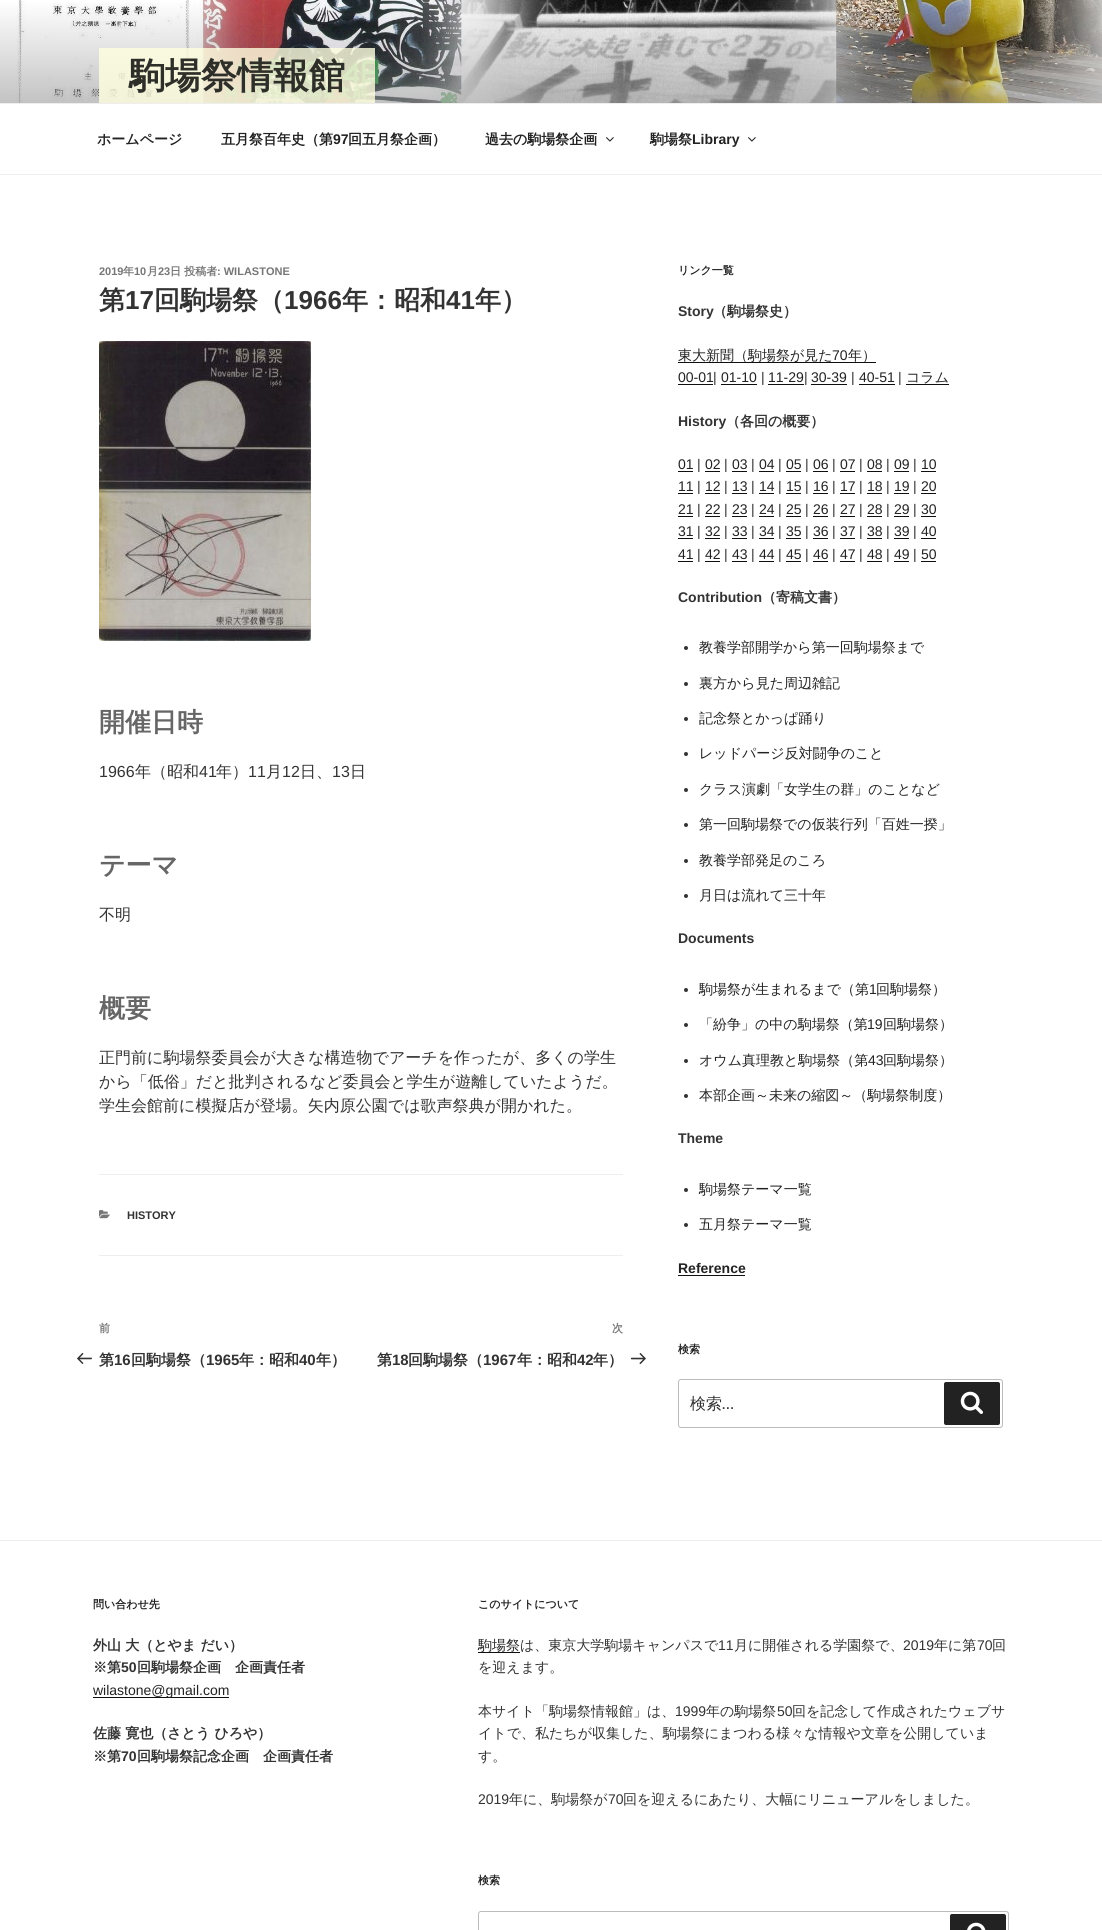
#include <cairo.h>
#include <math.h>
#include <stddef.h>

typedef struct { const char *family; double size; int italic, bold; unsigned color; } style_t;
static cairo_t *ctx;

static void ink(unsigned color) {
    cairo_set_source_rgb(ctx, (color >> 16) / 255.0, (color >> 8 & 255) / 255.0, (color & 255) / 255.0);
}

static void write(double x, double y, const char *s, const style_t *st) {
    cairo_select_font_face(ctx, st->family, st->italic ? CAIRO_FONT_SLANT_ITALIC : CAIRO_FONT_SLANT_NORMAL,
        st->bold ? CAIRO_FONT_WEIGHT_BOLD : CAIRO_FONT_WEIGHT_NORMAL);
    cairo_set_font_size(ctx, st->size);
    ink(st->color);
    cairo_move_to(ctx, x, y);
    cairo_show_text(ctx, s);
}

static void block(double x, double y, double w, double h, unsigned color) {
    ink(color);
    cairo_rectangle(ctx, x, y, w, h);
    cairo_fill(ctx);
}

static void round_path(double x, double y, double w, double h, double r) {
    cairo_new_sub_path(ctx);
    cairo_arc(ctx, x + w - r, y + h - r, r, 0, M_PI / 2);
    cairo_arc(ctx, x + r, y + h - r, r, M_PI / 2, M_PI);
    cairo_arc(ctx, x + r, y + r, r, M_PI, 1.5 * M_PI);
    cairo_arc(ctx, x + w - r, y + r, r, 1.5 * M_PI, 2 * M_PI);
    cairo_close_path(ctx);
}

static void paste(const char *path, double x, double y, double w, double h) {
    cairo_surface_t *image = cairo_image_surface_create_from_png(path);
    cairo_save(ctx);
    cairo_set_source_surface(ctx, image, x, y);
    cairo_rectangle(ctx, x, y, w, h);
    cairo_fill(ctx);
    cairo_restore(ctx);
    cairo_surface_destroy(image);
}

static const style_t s1 = {"WenQuanYi Zen Hei", 36, 0, 1, 0x2f2f2a};
static const style_t s2 = {"WenQuanYi Zen Hei", 14, 0, 1, 0x222222};
static const style_t s3 = {"Liberation Sans", 14, 0, 1, 0x222222};
static const style_t s4 = {"Liberation Sans", 11, 0, 1, 0x767676};
static const style_t s5 = {"WenQuanYi Zen Hei", 11, 0, 1, 0x767676};
static const style_t s6 = {"WenQuanYi Zen Hei", 26, 0, 1, 0x333333};
static const style_t s7 = {"Liberation Sans", 26, 0, 1, 0x333333};
static const style_t s8 = {"WenQuanYi Zen Hei", 26, 0, 1, 0x666666};
static const style_t s9 = {"Liberation Sans", 16, 0, 0, 0x333333};
static const style_t s10 = {"WenQuanYi Zen Hei Medium", 16, 0, 0, 0x333333};
static const style_t s11 = {"Liberation Sans", 11, 0, 1, 0x333333};
static const style_t s12 = {"WenQuanYi Zen Hei", 15, 0, 1, 0x333333};
static const style_t s13 = {"Liberation Sans", 15, 0, 1, 0x333333};
static const style_t s14 = {"WenQuanYi Zen Hei", 11, 0, 1, 0x222222};
static const style_t s15 = {"Liberation Sans", 14, 0, 1, 0x333333};
static const style_t s16 = {"WenQuanYi Zen Hei", 14, 0, 1, 0x333333};
static const style_t s17 = {"WenQuanYi Zen Hei Medium", 14, 0, 0, 0x222222};
static const style_t s18 = {"Liberation Sans", 14, 0, 0, 0x222222};
static const style_t s19 = {"Liberation Sans", 14, 0, 0, 0x333333};
static const style_t s20 = {"Libre Franklin", 16, 0, 0, 0x333333};
static const style_t s21 = {"WenQuanYi Zen Hei Medium", 14, 0, 0, 0x333333};

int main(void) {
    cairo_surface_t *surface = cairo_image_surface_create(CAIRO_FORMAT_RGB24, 1102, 1930);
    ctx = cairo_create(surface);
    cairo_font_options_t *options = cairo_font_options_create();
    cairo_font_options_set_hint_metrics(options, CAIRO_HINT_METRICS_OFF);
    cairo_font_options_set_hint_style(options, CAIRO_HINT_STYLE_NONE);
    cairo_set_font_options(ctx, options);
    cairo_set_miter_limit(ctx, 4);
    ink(0xffffff);
    cairo_paint(ctx);
    paste("pic1.png", 0, 0, 1102, 103);
    cairo_set_source_rgba(ctx, 1, 1, 0.878, 0.8);
    cairo_rectangle(ctx, 99, 48, 276, 55);
    cairo_fill(ctx);
    write(129, 88, "駒場祭情報館", &s1);
    block(0, 103, 1102, 1, 0xeeeeee);
    block(0, 174, 1102, 1, 0xeeeeee);
    write(97, 144, "ホームページ", &s2);
    write(221, 144, "五月祭百年史（第", &s2);
    write(333, 144, "97", &s3);
    write(348, 144, "回五月祭企画）", &s2);
    write(485, 144, "過去の駒場祭企画", &s2);
    paste("pic2.png", 606, 137, 8, 5);
    write(650, 144, "駒場祭", &s2);
    write(692, 144, "Library", &s3);
    paste("pic2.png", 748, 137, 8, 5);
    write(99, 275, "2019", &s4);
    write(123, 275, "年", &s5);
    write(134, 275, "10", &s4);
    write(147, 275, "月", &s5);
    write(158, 275, "23", &s4);
    write(170, 275, "日 投稿者", &s5);
    write(217, 275, ": WILASTONE", &s4);
    write(99, 309, "第", &s6);
    write(125, 309, "17", &s7);
    write(154, 309, "回駒場祭（", &s6);
    write(284, 309, "1966", &s7);
    write(342, 309, "年：昭和", &s6);
    write(446, 309, "41", &s7);
    write(475, 309, "年）", &s6);
    paste("pic3.png", 99, 341, 212, 300);
    write(99, 731, "開催日時", &s8);
    write(99, 777, "1966", &s9);
    write(135, 777, "年（昭和", &s10);
    write(199, 777, "41", &s9);
    write(216, 777, "年）", &s10);
    write(248, 777, "11", &s9);
    write(266, 777, "月", &s10);
    write(282, 777, "12", &s9);
    write(300, 777, "日、", &s10);
    write(332, 777, "13", &s9);
    write(350, 777, "日", &s10);
    write(99, 874, "テーマ", &s8);
    write(99, 920, "不明", &s10);
    write(99, 1017, "概要", &s8);
    write(99, 1063, "正門前に駒場祭委員会が大きな構造物でアーチを作ったが、多くの学生", &s10);
    write(99, 1087, "から「低俗」だと批判されるなど委員会と学生が遊離していたようだ。", &s10);
    write(99, 1111, "学生会館前に模擬店が登場。矢内原公園では歌声祭典が開かれた。", &s10);
    block(99, 1174, 524, 1, 0xeeeeee);
    block(99, 1255, 524, 1, 0xeeeeee);
    paste("pic4.png", 99, 1210, 11, 9);
    write(127, 1219, "HISTORY", &s11);
    write(99, 1332, "前", &s5);
    paste("pic5.png", 77, 1353, 15, 11);
    write(99, 1365, "第", &s12);
    write(114, 1365, "16", &s13);
    write(131, 1365, "回駒場祭（", &s12);
    write(206, 1365, "1965", &s13);
    write(239, 1365, "年：昭和", &s12);
    write(299, 1365, "40", &s13);
    write(316, 1365, "年）", &s12);
    write(612, 1332, "次", &s5);
    write(377, 1365, "第", &s12);
    write(392, 1365, "18", &s13);
    write(408, 1365, "回駒場祭（", &s12);
    write(483, 1365, "1967", &s13);
    write(517, 1365, "年：昭和", &s12);
    write(577, 1365, "42", &s13);
    write(593, 1365, "年）", &s12);
    paste("pic6.png", 631, 1353, 15, 12);
    write(678, 274, "リンク一覧", &s14);
    write(678, 316, "Story", &s15);
    write(713, 316, "（駒場祭史）", &s16);
    block(678, 362, 198, 1, 0x0f0f0f);
    write(678, 360, "東大新聞（駒場祭が見た", &s17);
    write(832, 360, "70", &s18);
    write(848, 360, "年）", &s17);
    write(678, 382, "00-01", &s18);
    block(678, 384, 35, 1, 0x0f0f0f);
    write(713, 382, "|", &s19);
    write(721, 382, "01-10", &s18);
    block(721, 384, 36, 1, 0x0f0f0f);
    write(761, 382, "|", &s19);
    write(768, 382, "11-29", &s18);
    block(768, 384, 36, 1, 0x0f0f0f);
    write(804, 382, "|", &s19);
    write(811, 382, "30-39", &s18);
    block(811, 384, 36, 1, 0x0f0f0f);
    write(851, 382, "|", &s19);
    write(859, 382, "40-51", &s18);
    block(859, 384, 36, 1, 0x0f0f0f);
    write(898, 382, "|", &s19);
    write(906, 382, "コラム", &s17);
    block(906, 384, 43, 1, 0x0f0f0f);
    write(678, 426, "History", &s15);
    write(726, 426, "（各回の概要）", &s16);
    write(678, 469, "01", &s18);
    block(678, 471, 15, 1, 0x0f0f0f);
    write(697, 469, "|", &s19);
    write(705, 469, "02", &s18);
    block(705, 471, 15, 1, 0x0f0f0f);
    write(724, 469, "|", &s19);
    write(732, 469, "03", &s18);
    block(732, 471, 15, 1, 0x0f0f0f);
    write(751, 469, "|", &s19);
    write(759, 469, "04", &s18);
    block(759, 471, 15, 1, 0x0f0f0f);
    write(778, 469, "|", &s19);
    write(786, 469, "05", &s18);
    block(786, 471, 15, 1, 0x0f0f0f);
    write(805, 469, "|", &s19);
    write(813, 469, "06", &s18);
    block(813, 471, 15, 1, 0x0f0f0f);
    write(832, 469, "|", &s19);
    write(840, 469, "07", &s18);
    block(840, 471, 15, 1, 0x0f0f0f);
    write(859, 469, "|", &s19);
    write(867, 469, "08", &s18);
    block(867, 471, 15, 1, 0x0f0f0f);
    write(886, 469, "|", &s19);
    write(894, 469, "09", &s18);
    block(894, 471, 15, 1, 0x0f0f0f);
    write(913, 469, "|", &s19);
    write(921, 469, "10", &s18);
    block(921, 471, 15, 1, 0x0f0f0f);
    write(678, 491, "11", &s18);
    block(678, 493, 15, 1, 0x0f0f0f);
    write(697, 491, "|", &s19);
    write(705, 491, "12", &s18);
    block(705, 493, 15, 1, 0x0f0f0f);
    write(724, 491, "|", &s19);
    write(732, 491, "13", &s18);
    block(732, 493, 15, 1, 0x0f0f0f);
    write(751, 491, "|", &s19);
    write(759, 491, "14", &s18);
    block(759, 493, 15, 1, 0x0f0f0f);
    write(778, 491, "|", &s19);
    write(786, 491, "15", &s18);
    block(786, 493, 15, 1, 0x0f0f0f);
    write(805, 491, "|", &s19);
    write(813, 491, "16", &s18);
    block(813, 493, 15, 1, 0x0f0f0f);
    write(832, 491, "|", &s19);
    write(840, 491, "17", &s18);
    block(840, 493, 15, 1, 0x0f0f0f);
    write(859, 491, "|", &s19);
    write(867, 491, "18", &s18);
    block(867, 493, 15, 1, 0x0f0f0f);
    write(886, 491, "|", &s19);
    write(894, 491, "19", &s18);
    block(894, 493, 15, 1, 0x0f0f0f);
    write(913, 491, "|", &s19);
    write(921, 491, "20", &s18);
    block(921, 493, 15, 1, 0x0f0f0f);
    write(678, 514, "21", &s18);
    block(678, 516, 15, 1, 0x0f0f0f);
    write(697, 514, "|", &s19);
    write(705, 514, "22", &s18);
    block(705, 516, 15, 1, 0x0f0f0f);
    write(724, 514, "|", &s19);
    write(732, 514, "23", &s18);
    block(732, 516, 15, 1, 0x0f0f0f);
    write(751, 514, "|", &s19);
    write(759, 514, "24", &s18);
    block(759, 516, 15, 1, 0x0f0f0f);
    write(778, 514, "|", &s19);
    write(786, 514, "25", &s18);
    block(786, 516, 15, 1, 0x0f0f0f);
    write(805, 514, "|", &s19);
    write(813, 514, "26", &s18);
    block(813, 516, 15, 1, 0x0f0f0f);
    write(832, 514, "|", &s19);
    write(840, 514, "27", &s18);
    block(840, 516, 15, 1, 0x0f0f0f);
    write(859, 514, "|", &s19);
    write(867, 514, "28", &s18);
    block(867, 516, 15, 1, 0x0f0f0f);
    write(886, 514, "|", &s19);
    write(894, 514, "29", &s18);
    block(894, 516, 15, 1, 0x0f0f0f);
    write(913, 514, "|", &s19);
    write(921, 514, "30", &s18);
    block(921, 516, 15, 1, 0x0f0f0f);
    write(678, 536, "31", &s18);
    block(678, 538, 15, 1, 0x0f0f0f);
    write(697, 536, "|", &s19);
    write(705, 536, "32", &s18);
    block(705, 538, 15, 1, 0x0f0f0f);
    write(724, 536, "|", &s19);
    write(732, 536, "33", &s18);
    block(732, 538, 15, 1, 0x0f0f0f);
    write(751, 536, "|", &s19);
    write(759, 536, "34", &s18);
    block(759, 538, 15, 1, 0x0f0f0f);
    write(778, 536, "|", &s19);
    write(786, 536, "35", &s18);
    block(786, 538, 15, 1, 0x0f0f0f);
    write(805, 536, "|", &s19);
    write(813, 536, "36", &s18);
    block(813, 538, 15, 1, 0x0f0f0f);
    write(832, 536, "|", &s19);
    write(840, 536, "37", &s18);
    block(840, 538, 15, 1, 0x0f0f0f);
    write(859, 536, "|", &s19);
    write(867, 536, "38", &s18);
    block(867, 538, 15, 1, 0x0f0f0f);
    write(886, 536, "|", &s19);
    write(894, 536, "39", &s18);
    block(894, 538, 15, 1, 0x0f0f0f);
    write(913, 536, "|", &s19);
    write(921, 536, "40", &s18);
    block(921, 538, 15, 1, 0x0f0f0f);
    write(678, 559, "41", &s18);
    block(678, 561, 15, 1, 0x0f0f0f);
    write(697, 559, "|", &s19);
    write(705, 559, "42", &s18);
    block(705, 561, 15, 1, 0x0f0f0f);
    write(724, 559, "|", &s19);
    write(732, 559, "43", &s18);
    block(732, 561, 15, 1, 0x0f0f0f);
    write(751, 559, "|", &s19);
    write(759, 559, "44", &s18);
    block(759, 561, 15, 1, 0x0f0f0f);
    write(778, 559, "|", &s19);
    write(786, 559, "45", &s18);
    block(786, 561, 15, 1, 0x0f0f0f);
    write(805, 559, "|", &s19);
    write(813, 559, "46", &s18);
    block(813, 561, 15, 1, 0x0f0f0f);
    write(832, 559, "|", &s19);
    write(840, 559, "47", &s18);
    block(840, 561, 15, 1, 0x0f0f0f);
    write(859, 559, "|", &s19);
    write(867, 559, "48", &s18);
    block(867, 561, 15, 1, 0x0f0f0f);
    write(886, 559, "|", &s19);
    write(894, 559, "49", &s18);
    block(894, 561, 15, 1, 0x0f0f0f);
    write(913, 559, "|", &s19);
    write(921, 559, "50", &s18);
    block(921, 561, 15, 1, 0x0f0f0f);
    write(678, 602, "Contribution", &s15);
    write(762, 602, "（寄稿文書）", &s16);
    cairo_new_path(ctx);
    cairo_arc(ctx, 686, 648, 2, 0, 2 * M_PI);
    cairo_fill(ctx);
    write(699, 652, "教養学部開学から第一回駒場祭まで", &s17);
    ink(0x333333);
    cairo_new_path(ctx);
    cairo_arc(ctx, 686, 684, 2, 0, 2 * M_PI);
    cairo_fill(ctx);
    write(699, 688, "裏方から見た周辺雑記", &s17);
    ink(0x333333);
    cairo_new_path(ctx);
    cairo_arc(ctx, 686, 719, 2, 0, 2 * M_PI);
    cairo_fill(ctx);
    write(699, 723, "記念祭とかっぱ踊り", &s17);
    ink(0x333333);
    cairo_new_path(ctx);
    cairo_arc(ctx, 686, 754, 2, 0, 2 * M_PI);
    cairo_fill(ctx);
    write(699, 758, "レッドパージ反対闘争のこと", &s17);
    ink(0x333333);
    cairo_new_path(ctx);
    cairo_arc(ctx, 686, 790, 2, 0, 2 * M_PI);
    cairo_fill(ctx);
    write(699, 794, "クラス演劇「女学生の群」のことなど", &s17);
    ink(0x333333);
    cairo_new_path(ctx);
    cairo_arc(ctx, 686, 825, 2, 0, 2 * M_PI);
    cairo_fill(ctx);
    write(699, 829, "第一回駒場祭での仮装行列「百姓一揆」", &s17);
    ink(0x333333);
    cairo_new_path(ctx);
    cairo_arc(ctx, 686, 861, 2, 0, 2 * M_PI);
    cairo_fill(ctx);
    write(699, 865, "教養学部発足のころ", &s17);
    ink(0x333333);
    cairo_new_path(ctx);
    cairo_arc(ctx, 686, 896, 2, 0, 2 * M_PI);
    cairo_fill(ctx);
    write(699, 900, "月日は流れて三十年", &s17);
    write(678, 943, "Documents", &s15);
    cairo_new_path(ctx);
    cairo_arc(ctx, 686, 990, 2, 0, 2 * M_PI);
    cairo_fill(ctx);
    write(699, 994, "駒場祭が生まれるまで（第", &s17);
    write(869, 994, "1", &s18);
    write(876, 994, "回駒場祭）", &s17);
    ink(0x333333);
    cairo_new_path(ctx);
    cairo_arc(ctx, 686, 1025, 2, 0, 2 * M_PI);
    cairo_fill(ctx);
    write(699, 1029, "「紛争」の中の駒場祭（第", &s17);
    write(867, 1029, "19", &s18);
    write(883, 1029, "回駒場祭）", &s17);
    ink(0x333333);
    cairo_new_path(ctx);
    cairo_arc(ctx, 686, 1061, 2, 0, 2 * M_PI);
    cairo_fill(ctx);
    write(699, 1065, "オウム真理教と駒場祭（第", &s17);
    write(868, 1065, "43", &s18);
    write(883, 1065, "回駒場祭）", &s17);
    ink(0x333333);
    cairo_new_path(ctx);
    cairo_arc(ctx, 686, 1096, 2, 0, 2 * M_PI);
    cairo_fill(ctx);
    write(699, 1100, "本部企画～未来の縮図～（駒場祭制度）", &s17);
    write(678, 1143, "Theme", &s15);
    cairo_new_path(ctx);
    cairo_arc(ctx, 686, 1190, 2, 0, 2 * M_PI);
    cairo_fill(ctx);
    write(699, 1194, "駒場祭テーマ一覧", &s17);
    ink(0x333333);
    cairo_new_path(ctx);
    cairo_arc(ctx, 686, 1225, 2, 0, 2 * M_PI);
    cairo_fill(ctx);
    write(699, 1229, "五月祭テーマ一覧", &s17);
    write(678, 1273, "Reference", &s3);
    block(678, 1275, 67, 1, 0x0f0f0f);
    write(678, 1353, "検索", &s14);
    round_path(678.5, 1379.5, 324, 48, 2.5);
    ink(0xbbbbbb);
    cairo_set_line_width(ctx, 1);
    cairo_stroke(ctx);
    write(690, 1409, "検索", &s10);
    write(722, 1409, "…", &s20);
    ink(0x222222);
    round_path(944, 1382, 56, 43, 2);
    cairo_fill(ctx);
    paste("pic7.png", 960, 1391, 23, 23);
    block(0, 1540, 1102, 1, 0xeeeeee);
    write(93, 1608, "問い合わせ先", &s14);
    write(93, 1650, "外山 大（とやま だい）", &s16);
    write(93, 1672, "※第", &s16);
    write(121, 1672, "50", &s15);
    write(137, 1672, "回駒場祭企画　企画責任者", &s16);
    block(93, 1697, 136, 1, 0x0f0f0f);
    write(93, 1695, "wilastone@gmail.com", &s18);
    write(93, 1738, "佐藤 寛也（さとう ひろや）", &s16);
    write(93, 1761, "※第", &s16);
    write(121, 1761, "70", &s15);
    write(137, 1761, "回駒場祭記念企画　企画責任者", &s16);
    write(478, 1608, "このサイトについて", &s14);
    write(478, 1650, "駒場祭", &s17);
    block(478, 1652, 42, 1, 0x0f0f0f);
    write(520, 1650, "は、東京大学駒場キャンパスで", &s21);
    write(718, 1650, "11", &s19);
    write(734, 1650, "月に開催される学園祭で、", &s21);
    write(903, 1650, "2019", &s19);
    write(934, 1650, "年に第", &s21);
    write(977, 1650, "70", &s19);
    write(992, 1650, "回", &s21);
    write(478, 1672, "を迎えます。", &s21);
    write(478, 1716, "本サイト「駒場祭情報館」は、", &s21);
    write(675, 1716, "1999", &s19);
    write(706, 1716, "年の駒場祭", &s21);
    write(777, 1716, "50", &s19);
    write(792, 1716, "回を記念して作成されたウェブサ", &s21);
    write(478, 1738, "イトで、私たちが収集した、駒場祭にまつわる様々な情報や文章を公開していま", &s21);
    write(478, 1761, "す。", &s21);
    write(478, 1804, "2019", &s19);
    write(509, 1804, "年に、駒場祭が", &s21);
    write(608, 1804, "70", &s19);
    write(623, 1804, "回を迎えるにあたり、大幅にリニューアルをしました。", &s21);
    write(478, 1884, "検索", &s14);
    round_path(478.5, 1911.5, 530, 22, 2.5);
    ink(0xbbbbbb);
    cairo_stroke(ctx);
    ink(0x222222);
    round_path(950, 1914, 56, 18, 2);
    cairo_fill(ctx);
    paste("pic8.png", 967, 1922, 19, 8);
    cairo_surface_write_to_png(surface, "screenshot.png");
    cairo_font_options_destroy(options);
    cairo_destroy(ctx);
    cairo_surface_destroy(surface);
    return 0;
}
